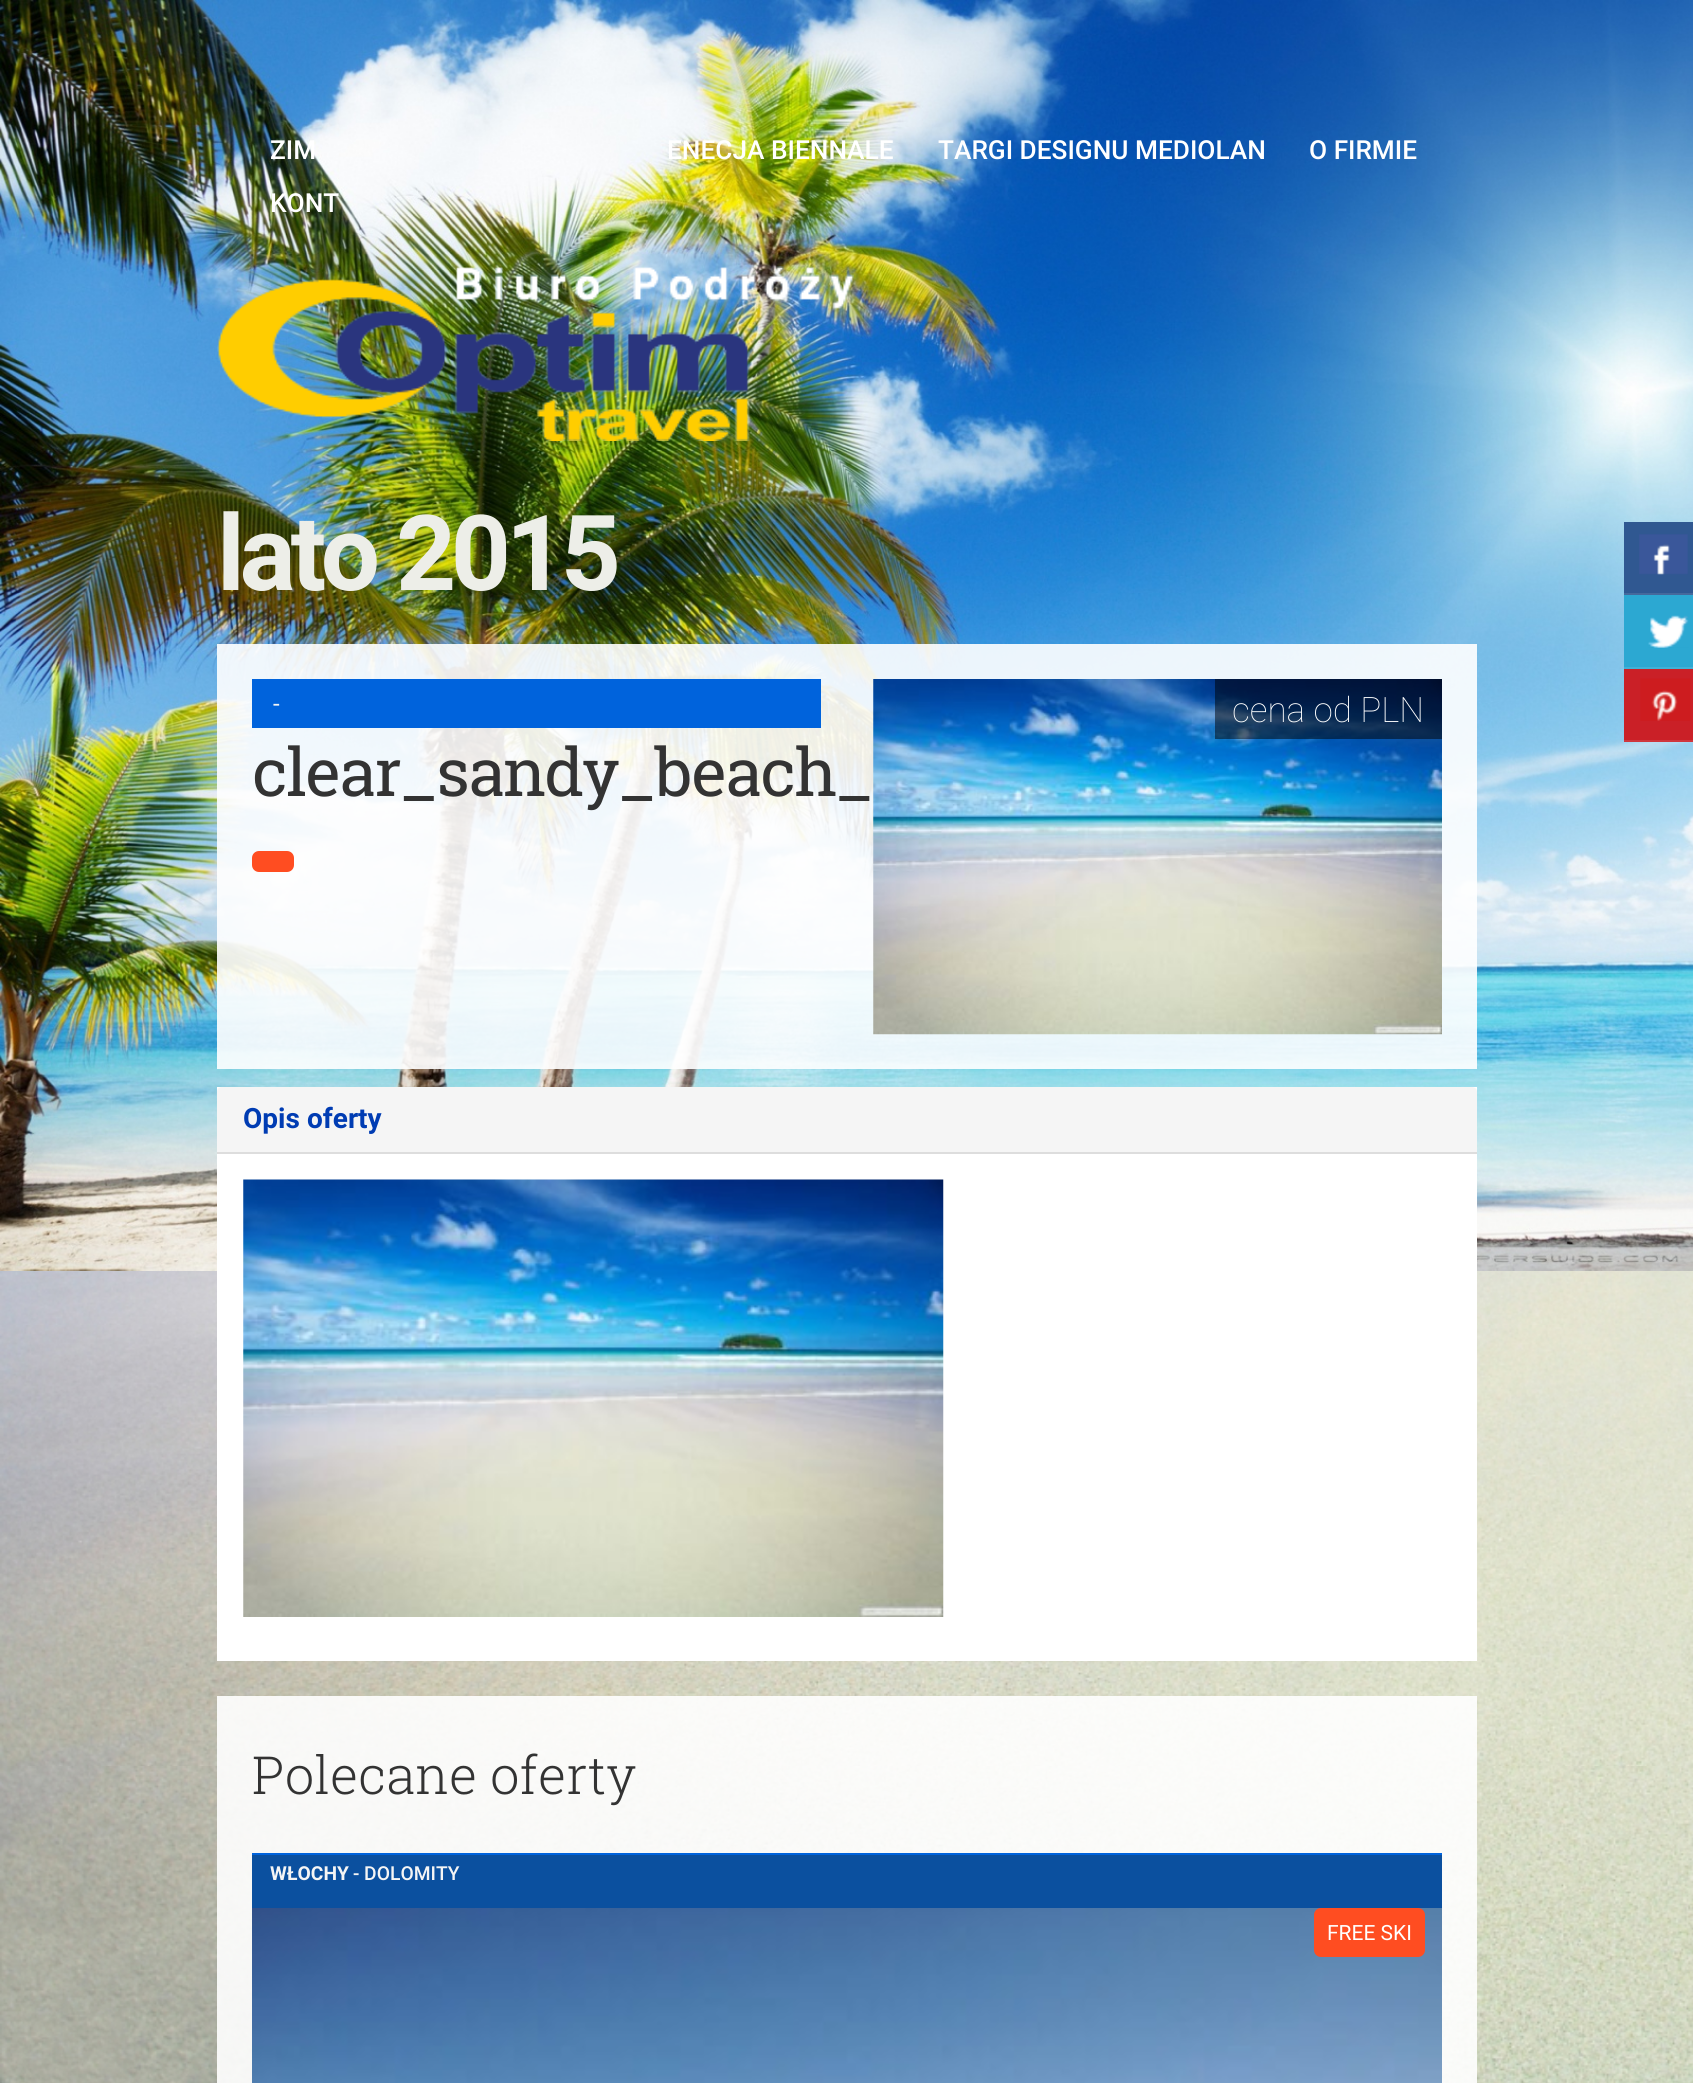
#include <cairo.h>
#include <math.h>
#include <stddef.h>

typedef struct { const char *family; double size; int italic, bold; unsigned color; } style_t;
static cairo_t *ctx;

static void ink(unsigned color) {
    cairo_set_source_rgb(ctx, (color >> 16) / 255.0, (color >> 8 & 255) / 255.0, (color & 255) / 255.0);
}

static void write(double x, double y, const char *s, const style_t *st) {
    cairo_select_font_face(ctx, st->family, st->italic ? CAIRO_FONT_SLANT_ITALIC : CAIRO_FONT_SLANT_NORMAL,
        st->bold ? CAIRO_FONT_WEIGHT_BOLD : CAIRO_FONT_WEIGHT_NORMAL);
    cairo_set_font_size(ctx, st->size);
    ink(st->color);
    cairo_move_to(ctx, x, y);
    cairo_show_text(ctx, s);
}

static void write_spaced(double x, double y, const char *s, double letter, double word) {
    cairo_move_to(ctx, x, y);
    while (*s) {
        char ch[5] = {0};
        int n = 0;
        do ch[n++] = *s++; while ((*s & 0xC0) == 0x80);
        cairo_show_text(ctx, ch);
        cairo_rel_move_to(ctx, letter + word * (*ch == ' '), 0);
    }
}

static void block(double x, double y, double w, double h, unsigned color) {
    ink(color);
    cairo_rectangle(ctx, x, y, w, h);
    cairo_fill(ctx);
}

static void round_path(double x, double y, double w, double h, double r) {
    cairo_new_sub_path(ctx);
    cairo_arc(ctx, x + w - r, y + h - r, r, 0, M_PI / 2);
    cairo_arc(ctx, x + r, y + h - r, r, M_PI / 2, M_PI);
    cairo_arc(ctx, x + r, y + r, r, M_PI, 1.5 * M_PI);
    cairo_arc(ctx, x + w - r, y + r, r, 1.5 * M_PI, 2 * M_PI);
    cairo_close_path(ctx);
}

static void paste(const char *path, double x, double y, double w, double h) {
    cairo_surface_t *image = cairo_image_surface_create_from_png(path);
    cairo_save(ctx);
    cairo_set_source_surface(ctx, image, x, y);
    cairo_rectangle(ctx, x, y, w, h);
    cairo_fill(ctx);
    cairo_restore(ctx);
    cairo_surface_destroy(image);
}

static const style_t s1 = {"Roboto Medium", 26.25, 0, 0, 0xffffff};
static const style_t s2 = {"Roboto", 24, 0, 0, 0xf5f5f5};
static const style_t s3 = {"Roboto Thin", 35, 0, 0, 0xffffff};
static const style_t s4 = {"Roboto", 28, 0, 1, 0x003cb3};
static const style_t s5 = {"Roboto Slab Light", 52.5, 0, 0, 0x333333};
static const style_t s6 = {"Roboto", 19.25, 0, 1, 0xf5f5f5};
static const style_t s7 = {"Roboto Medium", 19.25, 0, 0, 0xf5f5f5};
static const style_t s8 = {"Roboto", 21, 0, 0, 0xffffff};

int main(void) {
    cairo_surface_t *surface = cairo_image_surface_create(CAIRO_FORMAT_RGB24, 1693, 2083);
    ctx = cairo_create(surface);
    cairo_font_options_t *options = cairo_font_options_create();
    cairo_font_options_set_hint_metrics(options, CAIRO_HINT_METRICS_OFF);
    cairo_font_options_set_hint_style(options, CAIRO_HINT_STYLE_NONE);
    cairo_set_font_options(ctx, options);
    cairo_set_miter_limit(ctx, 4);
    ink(0xffffff);
    cairo_paint(ctx);
    paste("pic1.png", 0, 1271, 1693, 812);
    paste("pic2.png", 0, 0, 1693, 1271);
    write(270, 159, "ZIM", &s1);
    write(667, 159, "ENECJA BIENNALE", &s1);
    write(938, 159, "TARGI DESIGNU MEDIOLAN", &s1);
    write(1309, 159, "O FIRMIE", &s1);
    write(270, 212, "KONT", &s1);
    paste("pic3.png", 217, 266, 637, 175);
    cairo_select_font_face(ctx, "Roboto", CAIRO_FONT_SLANT_NORMAL, CAIRO_FONT_WEIGHT_BOLD);
    cairo_set_font_size(ctx, 105);
    ink(0xedeee8);
    write_spaced(217, 590, "lato 2015", -5.25, 0);
    block(1624, 522, 69, 71, 0x305891);
    block(1624, 593, 69, 2, 0x45699c);
    paste("pic4.png", 1639, 534, 49, 41);
    block(1624, 595, 69, 72, 0x2ca8d2);
    block(1624, 667, 69, 2, 0x41b1d7);
    paste("pic5.png", 1648, 615, 41, 33);
    block(1624, 669, 69, 71, 0xca2027);
    block(1624, 740, 69, 2, 0xcf363d);
    paste("pic6.png", 1640, 678, 51, 43);
    cairo_set_source_rgba(ctx, 1, 1, 1, 0.9);
    cairo_rectangle(ctx, 217, 644, 1260, 425);
    cairo_fill(ctx);
    paste("pic7.png", 873, 679, 569, 356);
    block(252, 679, 569, 49, 0x0063dc);
    write(273, 712, "-", &s2);
    cairo_select_font_face(ctx, "Roboto Slab", CAIRO_FONT_SLANT_NORMAL, CAIRO_FONT_WEIGHT_NORMAL);
    cairo_set_font_size(ctx, 66.5);
    ink(0x333333);
    write_spaced(252, 796, "clear_sandy_beach_", -1.75, 0);
    ink(0xff4d21);
    round_path(252, 851, 42, 21, 7);
    cairo_fill(ctx);
    cairo_set_source_rgba(ctx, 0, 0, 0, 0.5);
    cairo_rectangle(ctx, 1215, 679, 227, 60);
    cairo_fill(ctx);
    write(1232, 722, "cena od PLN", &s3);
    block(217, 1087, 1260, 574, 0xffffff);
    ink(0xf5f5f5);
    cairo_new_path(ctx);
    cairo_move_to(ctx, 222, 1087);
    cairo_line_to(ctx, 1472, 1087);
    cairo_curve_to(ctx, 1475, 1087, 1477, 1089, 1477, 1092);
    cairo_line_to(ctx, 1477, 1152);
    cairo_line_to(ctx, 217, 1152);
    cairo_line_to(ctx, 217, 1092);
    cairo_curve_to(ctx, 217, 1089, 219, 1087, 222, 1087);
    cairo_close_path(ctx);
    cairo_fill(ctx);
    write(243, 1128, "Opis oferty", &s4);
    block(217, 1152, 1260, 2, 0xdddddd);
    paste("pic8.png", 243, 1179, 701, 438);
    cairo_set_source_rgba(ctx, 1, 1, 1, 0.9);
    cairo_rectangle(ctx, 217, 1696, 1260, 387);
    cairo_fill(ctx);
    write(252, 1794, "Polecane oferty", &s5);
    paste("pic9.png", 252, 1908, 1190, 175);
    block(252, 1853, 1190, 2, 0x0063dc);
    block(252, 1855, 1190, 53, 0x0b509f);
    write(270, 1880, "WŁOCHY", &s6);
    write(353, 1880, "- DOLOMITY", &s7);
    ink(0xff4d21);
    round_path(1314, 1908, 111, 49, 7);
    cairo_fill(ctx);
    write(1327, 1940, "FREE SKI", &s8);
    cairo_surface_write_to_png(surface, "screenshot.png");
    cairo_font_options_destroy(options);
    cairo_destroy(ctx);
    cairo_surface_destroy(surface);
    return 0;
}
